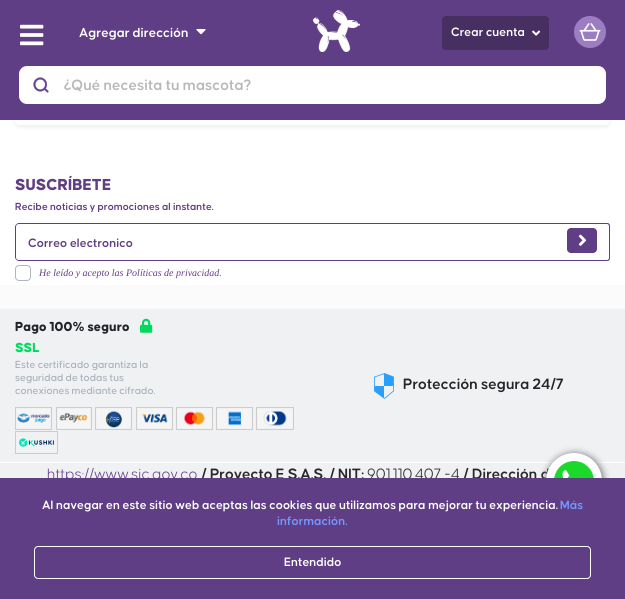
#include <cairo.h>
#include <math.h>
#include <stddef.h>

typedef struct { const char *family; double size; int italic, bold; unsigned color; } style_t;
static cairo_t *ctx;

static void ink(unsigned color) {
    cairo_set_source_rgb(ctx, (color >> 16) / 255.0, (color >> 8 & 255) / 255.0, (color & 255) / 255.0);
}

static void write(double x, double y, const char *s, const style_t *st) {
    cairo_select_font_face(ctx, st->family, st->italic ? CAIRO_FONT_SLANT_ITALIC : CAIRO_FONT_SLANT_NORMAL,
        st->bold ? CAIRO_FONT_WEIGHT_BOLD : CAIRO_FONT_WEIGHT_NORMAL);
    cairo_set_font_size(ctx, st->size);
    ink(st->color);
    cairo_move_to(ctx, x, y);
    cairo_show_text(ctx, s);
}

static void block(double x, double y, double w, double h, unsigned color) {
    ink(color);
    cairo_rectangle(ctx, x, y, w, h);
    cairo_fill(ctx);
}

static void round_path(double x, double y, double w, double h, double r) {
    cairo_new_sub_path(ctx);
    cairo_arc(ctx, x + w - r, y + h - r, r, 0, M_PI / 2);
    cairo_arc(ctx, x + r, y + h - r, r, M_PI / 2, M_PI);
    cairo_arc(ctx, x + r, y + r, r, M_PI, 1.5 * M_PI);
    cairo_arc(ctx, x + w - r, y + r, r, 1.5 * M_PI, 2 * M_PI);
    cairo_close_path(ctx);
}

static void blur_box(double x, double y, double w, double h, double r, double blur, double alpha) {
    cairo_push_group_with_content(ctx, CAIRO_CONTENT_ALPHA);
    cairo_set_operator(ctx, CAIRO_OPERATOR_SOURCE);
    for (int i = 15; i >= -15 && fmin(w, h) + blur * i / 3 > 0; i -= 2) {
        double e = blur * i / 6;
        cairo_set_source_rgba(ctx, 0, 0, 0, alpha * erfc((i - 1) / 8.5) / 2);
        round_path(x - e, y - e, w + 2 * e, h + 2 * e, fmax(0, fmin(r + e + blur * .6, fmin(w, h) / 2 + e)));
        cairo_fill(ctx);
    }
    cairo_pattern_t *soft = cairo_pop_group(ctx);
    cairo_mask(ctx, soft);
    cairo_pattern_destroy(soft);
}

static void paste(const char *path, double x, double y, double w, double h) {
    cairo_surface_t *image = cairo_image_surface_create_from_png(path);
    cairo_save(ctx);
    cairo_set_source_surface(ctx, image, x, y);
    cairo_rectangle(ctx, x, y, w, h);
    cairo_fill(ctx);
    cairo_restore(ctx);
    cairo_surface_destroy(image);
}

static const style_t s1 = {"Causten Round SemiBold", 14, 0, 0, 0xffffff};
static const style_t s2 = {"Causten Round SemiBold", 13, 0, 0, 0xffffff};
static const style_t s3 = {"Causten Round SemiBold", 16, 0, 0, 0xb8b8b8};
static const style_t s4 = {"Causten Round ExtraBold", 17, 0, 0, 0x603e85};
static const style_t s5 = {"Causten Round SemiBold", 11, 0, 0, 0x603e85};
static const style_t s6 = {"Causten Round SemiBold", 13, 0, 0, 0x603e85};
static const style_t s7 = {"Liberation Serif", 10, 1, 0, 0x603e85};
static const style_t s8 = {"Liberation Serif", 10, 1, 0, 0x653f90};
static const style_t s9 = {"Causten Round ExtraBold", 14, 0, 0, 0x212529};
static const style_t s10 = {"Causten Round ExtraBold", 14, 0, 0, 0x00d95f};
static const style_t s11 = {"Causten Round Medium", 11, 0, 0, 0xa7b0bb};
static const style_t s12 = {"Causten Round SemiBold", 16, 0, 0, 0x212529};
static const style_t s13 = {"Causten Round Light", 16, 0, 0, 0x653f90};
static const style_t s14 = {"Causten Round SemiBold", 16, 0, 0, 0x28272b};
static const style_t s15 = {"Causten Round Light", 16, 0, 0, 0x28272b};
static const style_t s16 = {"Causten Round SemiBold", 13, 0, 0, 0x7398ff};

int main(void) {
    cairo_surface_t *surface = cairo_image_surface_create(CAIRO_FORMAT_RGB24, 625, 599);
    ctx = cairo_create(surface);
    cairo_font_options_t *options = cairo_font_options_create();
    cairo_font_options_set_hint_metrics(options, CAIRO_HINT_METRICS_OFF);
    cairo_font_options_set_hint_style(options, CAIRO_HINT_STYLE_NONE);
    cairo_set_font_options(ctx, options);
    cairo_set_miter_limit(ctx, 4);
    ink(0xfbfbfb);
    cairo_paint(ctx);
    block(0, 120, 625, 165, 0xffffff);
    ink(0x000000);
    blur_box(15, 71, 595, 56, 4, 2, 0.07);
    ink(0xffffff);
    cairo_new_path(ctx);
    cairo_move_to(ctx, 15, 69);
    cairo_line_to(ctx, 610, 69);
    cairo_line_to(ctx, 610, 121);
    cairo_curve_to(ctx, 610, 123, 608, 125, 606, 125);
    cairo_line_to(ctx, 19, 125);
    cairo_curve_to(ctx, 17, 125, 15, 123, 15, 121);
    cairo_close_path(ctx);
    cairo_fill(ctx);
    block(0, 0, 625, 120, 0x603e85);
    paste("pic1.png", 20, 24, 24, 22);
    write(79, 37, "Agregar dirección", &s1);
    paste("pic2.png", 196, 29, 10, 6);
    ink(0x472f62);
    round_path(442, 16, 107, 34, 4);
    cairo_fill(ctx);
    write(451, 36, "Crear cuenta", &s2);
    paste("pic3.png", 532, 30, 9, 6);
    ink(0x9d7dc2);
    cairo_arc(ctx, 590, 32, 16, 0, 2 * M_PI);
    cairo_fill(ctx);
    paste("pic4.png", 579, 23, 22, 18);
    paste("pic5.png", 312, 10, 48, 42);
    ink(0xffffff);
    round_path(19, 66, 587, 38, 8);
    cairo_fill(ctx);
    paste("pic6.png", 33, 77, 16, 16);
    write(64, 90, "¿Qué necesita tu mascota?", &s3);
    write(15, 190, "SUSCRÍBETE", &s4);
    write(15, 210, "Recibe noticias y promociones al instante.", &s5);
    cairo_set_fill_rule(ctx, CAIRO_FILL_RULE_EVEN_ODD);
    cairo_new_path(ctx);
    cairo_move_to(ctx, 19, 223);
    cairo_line_to(ctx, 555, 223);
    cairo_line_to(ctx, 555, 261);
    cairo_line_to(ctx, 19, 261);
    cairo_curve_to(ctx, 17, 261, 15, 259, 15, 257);
    cairo_line_to(ctx, 15, 227);
    cairo_curve_to(ctx, 15, 225, 17, 223, 19, 223);
    cairo_close_path(ctx);
    cairo_move_to(ctx, 19, 224);
    cairo_line_to(ctx, 555, 224);
    cairo_line_to(ctx, 555, 260);
    cairo_line_to(ctx, 19, 260);
    cairo_curve_to(ctx, 17, 260, 16, 259, 16, 257);
    cairo_line_to(ctx, 16, 227);
    cairo_curve_to(ctx, 16, 225, 17, 224, 19, 224);
    cairo_close_path(ctx);
    cairo_fill(ctx);
    write(28, 247, "Correo electronico", &s6);
    cairo_new_path(ctx);
    cairo_move_to(ctx, 555, 223);
    cairo_line_to(ctx, 607, 223);
    cairo_curve_to(ctx, 609, 223, 610, 224, 610, 226);
    cairo_line_to(ctx, 610, 258);
    cairo_curve_to(ctx, 610, 260, 609, 261, 607, 261);
    cairo_line_to(ctx, 555, 261);
    cairo_close_path(ctx);
    cairo_move_to(ctx, 555, 224);
    cairo_line_to(ctx, 607, 224);
    cairo_curve_to(ctx, 608, 224, 609, 225, 609, 226);
    cairo_line_to(ctx, 609, 258);
    cairo_curve_to(ctx, 609, 259, 608, 260, 607, 260);
    cairo_line_to(ctx, 555, 260);
    cairo_close_path(ctx);
    cairo_fill(ctx);
    round_path(567, 228, 30, 25, 4);
    cairo_fill(ctx);
    paste("pic7.png", 578, 234, 9, 12);
    round_path(15.5, 265.5, 15, 15, 3.5);
    ink(0xadb5bd);
    cairo_set_line_width(ctx, 1);
    cairo_stroke(ctx);
    write(39, 276, "He leído y acepto las", &s7);
    write(126, 276, "Políticas de privacidad.", &s8);
    block(0, 309, 625, 169, 0xf0f1f3);
    write(15, 331, "Pago 100% seguro", &s9);
    paste("pic8.png", 140, 318, 13, 15);
    write(15, 352, "SSL", &s10);
    write(15, 368, "Este certificado garantiza la", &s11);
    write(15, 381, "seguridad de todas tus", &s11);
    write(15, 394, "conexiones mediante cifrado.", &s11);
    cairo_rectangle(ctx, 15.5, 407.5, 36, 22);
    ink(0xcccccc);
    cairo_stroke(ctx);
    cairo_rectangle(ctx, 56.5, 407.5, 35, 22);
    cairo_stroke(ctx);
    cairo_rectangle(ctx, 95.5, 407.5, 36, 22);
    cairo_stroke(ctx);
    cairo_rectangle(ctx, 136.5, 407.5, 36, 22);
    cairo_stroke(ctx);
    cairo_rectangle(ctx, 176.5, 407.5, 36, 22);
    cairo_stroke(ctx);
    cairo_rectangle(ctx, 216.5, 407.5, 36, 22);
    cairo_stroke(ctx);
    cairo_rectangle(ctx, 256.5, 407.5, 37, 22);
    cairo_stroke(ctx);
    paste("pic9.png", 17, 409, 33, 19);
    paste("pic10.png", 58, 409, 32, 19);
    paste("pic11.png", 97, 409, 33, 19);
    paste("pic12.png", 138, 409, 33, 19);
    paste("pic13.png", 178, 409, 33, 19);
    paste("pic14.png", 218, 409, 33, 19);
    paste("pic15.png", 258, 409, 34, 19);
    cairo_rectangle(ctx, 15.5, 431.5, 42, 22);
    cairo_stroke(ctx);
    paste("pic16.png", 19, 438, 35, 9);
    ink(0x2a9efb);
    cairo_set_fill_rule(ctx, CAIRO_FILL_RULE_WINDING);
    cairo_new_path(ctx);
    cairo_move_to(ctx, 384, 398);
    cairo_line_to(ctx, 384, 386);
    cairo_line_to(ctx, 374.5, 386);
    cairo_line_to(ctx, 374.5, 391);
    cairo_close_path(ctx);
    cairo_move_to(ctx, 384.5, 373.5);
    cairo_line_to(ctx, 393.5, 377);
    cairo_line_to(ctx, 393.5, 386);
    cairo_line_to(ctx, 384, 386);
    cairo_line_to(ctx, 384, 373.5);
    cairo_close_path(ctx);
    cairo_fill(ctx);
    cairo_new_path(ctx);
    cairo_move_to(ctx, 384.5, 373.5);
    cairo_line_to(ctx, 374.5, 377);
    cairo_line_to(ctx, 374.5, 391);
    cairo_line_to(ctx, 384.5, 398.5);
    cairo_line_to(ctx, 393.5, 391);
    cairo_line_to(ctx, 393.5, 377);
    cairo_close_path(ctx);
    cairo_set_line_width(ctx, 0.8);
    cairo_stroke(ctx);
    write(403, 389, "Protección segura 24/7", &s12);
    block(0, 462, 625, 1, 0xffffff);
    write(47, 479, "https://www.sic.gov.co", &s13);
    write(201, 479, "/ Proyecto E S.A.S. / NIT:", &s14);
    write(367, 479, "901.110.407 -4", &s15);
    write(463, 479, "/ Dirección d", &s14);
    ink(0x808080);
    blur_box(546, 453, 58, 58, 29, 3.5, 1);
    ink(0xffffff);
    cairo_arc(ctx, 574, 481, 28, 0, 2 * M_PI);
    cairo_fill(ctx);
    paste("pic17.png", 554, 461, 40, 17);
    block(0, 478, 625, 121, 0x603e85);
    write(42, 509, "Al navegar en este sitio web aceptas las cookies que utilizamos para mejorar tu experiencia.", &s2);
    write(560, 509, "Más", &s16);
    write(277, 525, "información.", &s16);
    round_path(34.5, 546.5, 556, 32, 3.5);
    ink(0xffffff);
    cairo_set_line_width(ctx, 1);
    cairo_stroke(ctx);
    write(284, 566, "Entendido", &s2);
    cairo_surface_write_to_png(surface, "screenshot.png");
    cairo_font_options_destroy(options);
    cairo_destroy(ctx);
    cairo_surface_destroy(surface);
    return 0;
}
